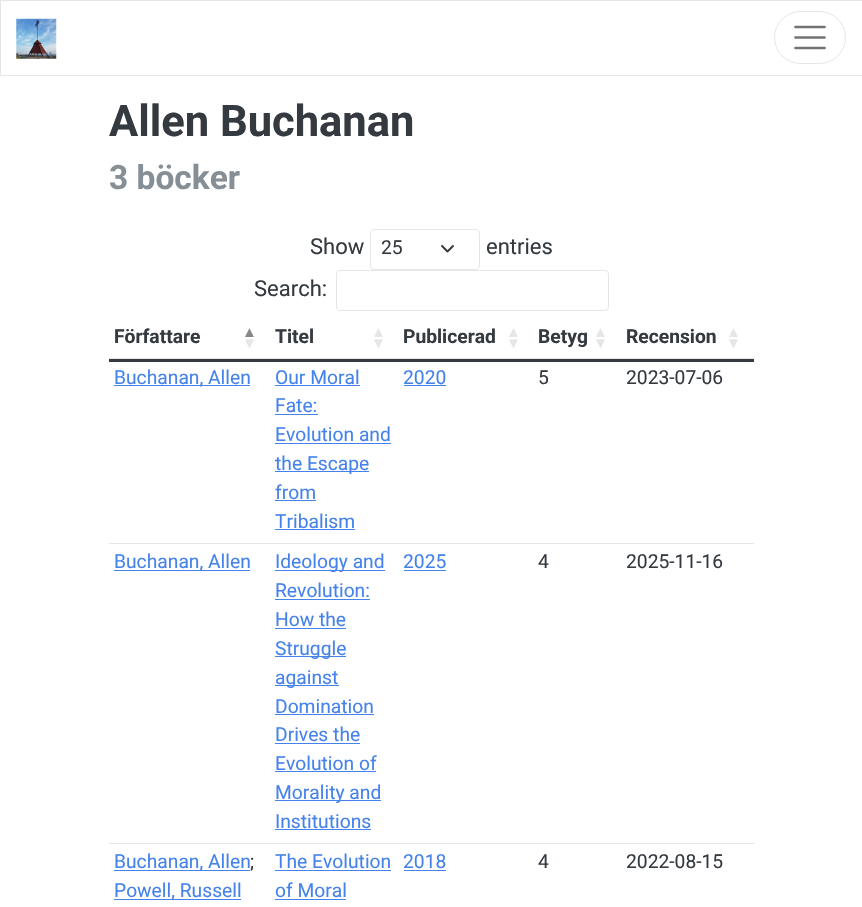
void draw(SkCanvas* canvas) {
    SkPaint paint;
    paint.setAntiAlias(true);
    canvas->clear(0xFFFFFFFF);
    paint.setStyle(SkPaint::kStroke_Style);
    paint.setStrokeWidth(1);
    paint.setColor(0xFFE6E6E6);
    canvas->drawRect(SkRect::MakeXYWH(0.5f, 0.5f, 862, 75), paint);
    canvas->drawImageRect(SkImages::DeferredFromEncodedData(SkData::MakeFromFileName("img1.png")), SkRect::MakeXYWH(16, 18, 41, 41), SkSamplingOptions());
    canvas->drawRoundRect(SkRect::MakeXYWH(774.5f, 11.5f, 71, 52), 26, 26, paint);
    paint.setStrokeWidth(2.7f);
    paint.setStrokeCap(SkPaint::kRound_Cap);
    paint.setColor(0xFF737373);
    canvas->drawPath(SkPathBuilder().moveTo(795.5f, 27).lineTo(824.5f, 27).moveTo(795.5f, 37.5f).lineTo(824.5f, 37.5f).moveTo(795.5f, 48).lineTo(824.5f, 48).detach(), paint);
    SkFont font1(fontMgr->matchFamilyStyle("Roboto", SkFontStyle::Bold()), 43.5f);
    font1.setSubpixel(true);
    paint.setStyle(SkPaint::kFill_Style);
    paint.setColor(0xFF343A40);
    canvas->drawString("Allen Buchanan", 109, 136, font1, paint);
    SkFont font2(fontMgr->matchFamilyStyle("Roboto", SkFontStyle::Bold()), 33.5f);
    font2.setSubpixel(true);
    paint.setColor(0xFF868E96);
    canvas->drawString("3 böcker", 109, 189, font2, paint);
    SkFont font3(fontMgr->matchFamilyStyle("Roboto", SkFontStyle::Normal()), 22);
    font3.setSubpixel(true);
    paint.setColor(0xFF343A40);
    canvas->drawString("Show", 310, 254, font3, paint);
    paint.setStyle(SkPaint::kStroke_Style);
    paint.setStrokeWidth(1.9f);
    paint.setStrokeJoin(SkPaint::kRound_Join);
    canvas->drawPath(SkPathBuilder().moveTo(442, 246).lineTo(447.5f, 251.5f).lineTo(453, 246).detach(), paint);
    paint.setStrokeWidth(1);
    paint.setStrokeCap(SkPaint::kButt_Cap);
    paint.setStrokeJoin(SkPaint::kMiter_Join);
    paint.setColor(0xFFE6E6E6);
    canvas->drawRoundRect(SkRect::MakeXYWH(370.5f, 229.5f, 109, 40), 3.5f, 3.5f, paint);
    SkFont font4(fontMgr->matchFamilyStyle("Roboto", SkFontStyle::Normal()), 19.25f);
    font4.setSubpixel(true);
    paint.setStyle(SkPaint::kFill_Style);
    paint.setColor(0xFF343A40);
    canvas->drawString("25", 381, 254, font4, paint);
    canvas->drawString("entries", 486, 254, font3, paint);
    canvas->drawString("Search:", 254, 296, font3, paint);
    paint.setStyle(SkPaint::kStroke_Style);
    paint.setColor(0xFFE6E6E6);
    canvas->drawRoundRect(SkRect::MakeXYWH(336.5f, 270.5f, 272, 40), 3.5f, 3.5f, paint);
    paint.setStyle(SkPaint::kFill_Style);
    canvas->drawRect(SkRect::MakeXYWH(109, 358, 645, 1), paint);
    SkFont font5(fontMgr->matchFamilyStyle("Roboto", SkFontStyle::Bold()), 19.25f);
    font5.setSubpixel(true);
    paint.setColor(0xFF343A40);
    canvas->drawString("Författare", 114, 343, font5, paint);
    SkFont font6(fontMgr->matchFamilyStyle("Liberation Sans", SkFontStyle::Bold()), 15);
    font6.setSubpixel(true);
    paint.setColor(0xFF85898C);
    canvas->drawString("▲", 242, 337, font6, paint);
    paint.setColor(0xFFE6E6E7);
    canvas->drawString("▼", 242, 348, font6, paint);
    paint.setColor(0xFF343A40);
    canvas->drawString("Titel", 275, 343, font5, paint);
    paint.setColor(0xFFE6E6E7);
    canvas->drawString("▲", 371, 337, font6, paint);
    canvas->drawString("▼", 371, 348, font6, paint);
    paint.setColor(0xFF343A40);
    canvas->drawString("Publicerad", 403, 343, font5, paint);
    paint.setColor(0xFFE6E6E7);
    canvas->drawString("▲", 506, 337, font6, paint);
    canvas->drawString("▼", 506, 348, font6, paint);
    paint.setColor(0xFF343A40);
    canvas->drawString("Betyg", 538, 343, font5, paint);
    paint.setColor(0xFFE6E6E7);
    canvas->drawString("▲", 593, 337, font6, paint);
    canvas->drawString("▼", 593, 348, font6, paint);
    paint.setColor(0xFF343A40);
    canvas->drawString("Recension", 626, 343, font5, paint);
    paint.setColor(0xFFE6E6E7);
    canvas->drawString("▲", 726, 337, font6, paint);
    canvas->drawString("▼", 726, 348, font6, paint);
    paint.setColor(0xFF343A40);
    canvas->drawRect(SkRect::MakeXYWH(109, 359, 645, 3), paint);
    paint.setColor(0xFFE6E6E6);
    canvas->drawRect(SkRect::MakeXYWH(109, 543, 645, 1), paint);
    paint.setColor(0xFF4582EC);
    canvas->drawRect(SkRect::MakeXYWH(114, 385, 136, 1), paint);
    canvas->drawString("Buchanan, Allen", 114, 384, font4, paint);
    canvas->drawString("Our Moral", 275, 384, font4, paint);
    canvas->drawRect(SkRect::MakeXYWH(275, 385, 85, 1), paint);
    canvas->drawString("Fate:", 275, 412, font4, paint);
    canvas->drawRect(SkRect::MakeXYWH(275, 414, 43, 1), paint);
    canvas->drawString("Evolution and", 275, 441, font4, paint);
    canvas->drawRect(SkRect::MakeXYWH(275, 443, 116, 1), paint);
    canvas->drawRect(SkRect::MakeXYWH(275, 471, 94, 1), paint);
    canvas->drawString("the Escape", 275, 470, font4, paint);
    canvas->drawString("from", 275, 499, font4, paint);
    canvas->drawRect(SkRect::MakeXYWH(275, 500, 41, 1), paint);
    canvas->drawString("Tribalism", 275, 528, font4, paint);
    canvas->drawRect(SkRect::MakeXYWH(275, 529, 80, 1), paint);
    canvas->drawString("2020", 403, 384, font4, paint);
    canvas->drawRect(SkRect::MakeXYWH(404, 385, 42, 1), paint);
    paint.setColor(0xFF343A40);
    canvas->drawString("5", 538, 384, font4, paint);
    canvas->drawString("2023-07-06", 626, 384, font4, paint);
    paint.setColor(0xFFE6E6E6);
    canvas->drawRect(SkRect::MakeXYWH(109, 843, 645, 1), paint);
    paint.setColor(0xFF4582EC);
    canvas->drawRect(SkRect::MakeXYWH(114, 570, 136, 1), paint);
    canvas->drawString("Buchanan, Allen", 114, 568, font4, paint);
    canvas->drawRect(SkRect::MakeXYWH(275, 570, 110, 1), paint);
    canvas->drawString("Ideology and", 275, 568, font4, paint);
    canvas->drawString("Revolution:", 275, 597, font4, paint);
    canvas->drawRect(SkRect::MakeXYWH(275, 599, 95, 1), paint);
    canvas->drawString("How the", 275, 626, font4, paint);
    canvas->drawRect(SkRect::MakeXYWH(275, 628, 71, 1), paint);
    canvas->drawRect(SkRect::MakeXYWH(275, 656, 71, 1), paint);
    canvas->drawString("Struggle", 275, 655, font4, paint);
    canvas->drawRect(SkRect::MakeXYWH(275, 685, 64, 1), paint);
    canvas->drawString("against", 275, 684, font4, paint);
    canvas->drawString("Domination", 275, 713, font4, paint);
    canvas->drawRect(SkRect::MakeXYWH(275, 714, 99, 1), paint);
    canvas->drawString("Drives the", 275, 741, font4, paint);
    canvas->drawRect(SkRect::MakeXYWH(275, 743, 85, 1), paint);
    canvas->drawString("Evolution of", 275, 770, font4, paint);
    canvas->drawRect(SkRect::MakeXYWH(275, 771, 101, 1), paint);
    canvas->drawRect(SkRect::MakeXYWH(275, 800, 106, 1), paint);
    canvas->drawString("Morality and", 275, 799, font4, paint);
    canvas->drawString("Institutions", 275, 828, font4, paint);
    canvas->drawRect(SkRect::MakeXYWH(275, 829, 96, 1), paint);
    canvas->drawString("2025", 403, 568, font4, paint);
    canvas->drawRect(SkRect::MakeXYWH(404, 570, 42, 1), paint);
    paint.setColor(0xFF343A40);
    canvas->drawString("4", 538, 568, font4, paint);
    canvas->drawString("2025-11-16", 626, 568, font4, paint);
    paint.setColor(0xFF4582EC);
    canvas->drawRect(SkRect::MakeXYWH(114, 870, 136, 1), paint);
    canvas->drawString("Buchanan, Allen", 114, 868, font4, paint);
    paint.setColor(0xFF343A40);
    canvas->drawString(";", 250, 868, font4, paint);
    paint.setColor(0xFF4582EC);
    canvas->drawRect(SkRect::MakeXYWH(114, 899, 127, 1), paint);
    canvas->drawString("Powell, Russell", 114, 897, font4, paint);
    canvas->drawString("The Evolution", 275, 868, font4, paint);
    canvas->drawRect(SkRect::MakeXYWH(275, 870, 116, 1), paint);
    canvas->drawString("of Moral", 275, 897, font4, paint);
    canvas->drawRect(SkRect::MakeXYWH(275, 899, 71, 1), paint);
    canvas->drawString("2018", 403, 868, font4, paint);
    canvas->drawRect(SkRect::MakeXYWH(404, 870, 42, 1), paint);
    paint.setColor(0xFF343A40);
    canvas->drawString("4", 538, 868, font4, paint);
    canvas->drawString("2022-08-15", 626, 868, font4, paint);
}
